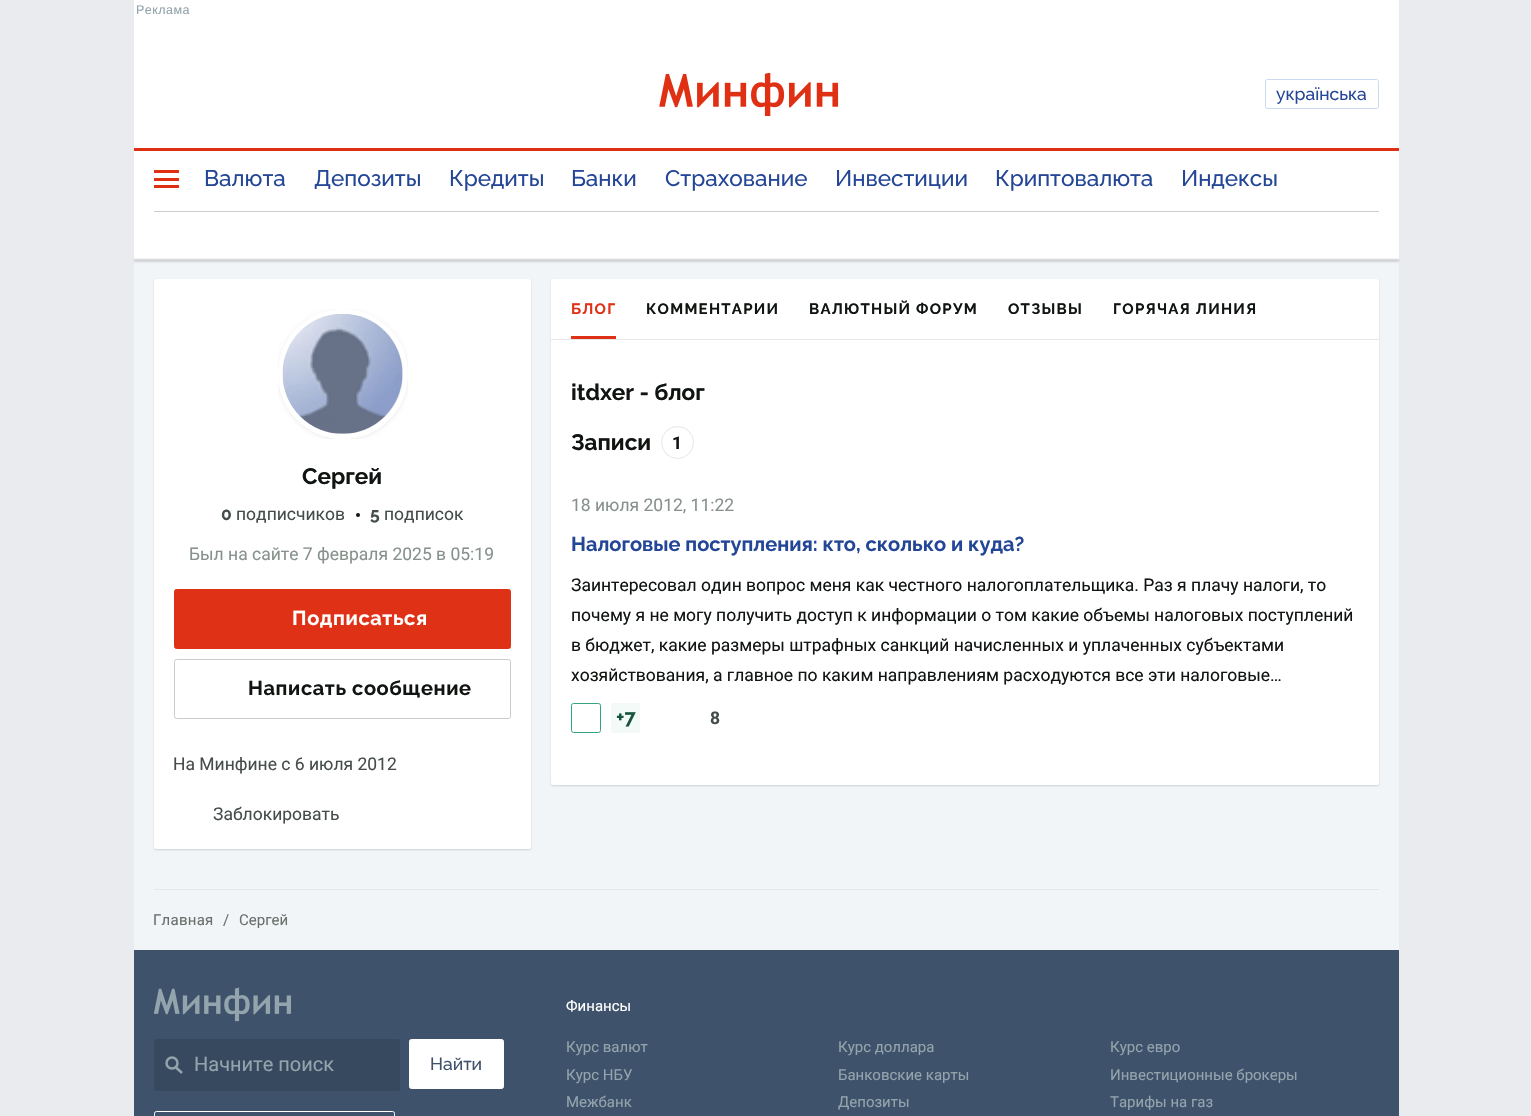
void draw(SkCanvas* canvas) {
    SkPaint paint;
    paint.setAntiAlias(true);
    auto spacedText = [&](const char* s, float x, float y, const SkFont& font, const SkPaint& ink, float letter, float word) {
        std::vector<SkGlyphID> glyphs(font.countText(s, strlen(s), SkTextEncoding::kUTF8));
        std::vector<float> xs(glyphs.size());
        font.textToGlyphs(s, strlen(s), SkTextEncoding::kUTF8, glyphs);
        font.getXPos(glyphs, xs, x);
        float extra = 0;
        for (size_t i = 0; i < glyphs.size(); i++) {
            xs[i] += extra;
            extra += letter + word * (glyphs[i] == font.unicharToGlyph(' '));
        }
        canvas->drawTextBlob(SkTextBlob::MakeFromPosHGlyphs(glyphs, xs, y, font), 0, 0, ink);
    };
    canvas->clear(0xFFE9EBEE);
    paint.setColor(0xFFFFFFFF);
    canvas->drawRect(SkRect::MakeXYWH(134, 0, 1265, 148), paint);
    SkFont font1(fontMgr->matchFamilyStyle("Liberation Sans", SkFontStyle::Normal()), 12.5f);
    font1.setSubpixel(true);
    paint.setColor(0xFF93A4AC);
    spacedText("Реклама", 136, 14, font1, paint, 0.5f, 0);
    canvas->drawImageRect(SkImages::DeferredFromEncodedData(SkData::MakeFromFileName("img1.png")), SkRect::MakeXYWH(659, 73, 180, 43), SkSamplingOptions());
    paint.setStyle(SkPaint::kStroke_Style);
    paint.setStrokeWidth(1);
    paint.setColor(0xFFCBDAF3);
    canvas->drawRoundRect(SkRect::MakeXYWH(1265.5f, 79.5f, 113, 29), 2, 2, paint);
    SkFont font2(fontMgr->matchFamilyStyle("Raleway", SkFontStyle(500, SkFontStyle::kNormal_Width, SkFontStyle::kUpright_Slant)), 17.5f);
    font2.setSubpixel(true);
    paint.setStyle(SkPaint::kFill_Style);
    paint.setColor(0xFF244696);
    canvas->drawString("українська", 1276, 100, font2, paint);
    paint.setColor(0xFFFFFFFF);
    canvas->drawRect(SkRect::MakeXYWH(134, 151, 1265, 108), paint);
    paint.setColor(0xFFDF3014);
    canvas->drawRect(SkRect::MakeXYWH(134, 148, 1265, 3), paint);
    canvas->drawRect(SkRect::MakeXYWH(154, 170, 25, 3), paint);
    canvas->drawRect(SkRect::MakeXYWH(154, 178, 25, 3), paint);
    canvas->drawRect(SkRect::MakeXYWH(154, 185, 25, 3), paint);
    SkFont font3(fontMgr->matchFamilyStyle("Raleway", SkFontStyle(500, SkFontStyle::kNormal_Width, SkFontStyle::kUpright_Slant)), 22.5f);
    font3.setSubpixel(true);
    paint.setColor(0xFF244696);
    canvas->drawString("Валюта", 204, 186, font3, paint);
    canvas->drawString("Депозиты", 314, 186, font3, paint);
    canvas->drawString("Кредиты", 449, 186, font3, paint);
    canvas->drawString("Банки", 571, 186, font3, paint);
    canvas->drawString("Страхование", 665, 186, font3, paint);
    canvas->drawString("Инвестиции", 835, 186, font3, paint);
    canvas->drawString("Криптовалюта", 995, 186, font3, paint);
    canvas->drawString("Индексы", 1181, 186, font3, paint);
    paint.setColor(0xFFCCCCCC);
    canvas->drawRect(SkRect::MakeXYWH(154, 211, 1225, 1), paint);
    paint.setColor(0xFFF2F5F8);
    canvas->drawRect(SkRect::MakeXYWH(134, 259, 1265, 691), paint);
    paint.setColor(0x26000000);
    paint.setMaskFilter(SkMaskFilter::MakeBlur(kNormal_SkBlurStyle, 1));
    canvas->drawRect(SkRect::MakeXYWH(134, 259, 1265, 3), paint);
    paint.setMaskFilter(nullptr);
    paint.setColor(0x24000000);
    paint.setMaskFilter(SkMaskFilter::MakeBlur(kNormal_SkBlurStyle, 1));
    canvas->drawRoundRect(SkRect::MakeXYWH(154, 280, 377, 570), 2.5f, 2.5f, paint);
    paint.setMaskFilter(nullptr);
    paint.setColor(0xFFFFFFFF);
    canvas->drawRoundRect(SkRect::MakeXYWH(154, 279, 377, 570), 2.5f, 2.5f, paint);
    canvas->save();
    canvas->clipRect(SkRect::MakeXYWH(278, 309, 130, 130));
    paint.setColor(0x14000000);
    paint.setMaskFilter(SkMaskFilter::MakeBlur(kNormal_SkBlurStyle, 2));
    canvas->drawRoundRect(SkRect::MakeXYWH(278, 310, 130, 130), 65, 65, paint);
    paint.setMaskFilter(nullptr);
    canvas->restore();
    paint.setStyle(SkPaint::kStroke_Style);
    paint.setStrokeWidth(5);
    paint.setColor(0xFFFFFFFF);
    canvas->drawCircle(343, 374, 62.5f, paint);
    canvas->drawImageRect(SkImages::DeferredFromEncodedData(SkData::MakeFromFileName("img2.png")), SkRect::MakeXYWH(282, 314, 121, 120), SkSamplingOptions());
    SkFont font4(fontMgr->matchFamilyStyle("Raleway", SkFontStyle::Bold()), 22.5f);
    font4.setSubpixel(true);
    paint.setStyle(SkPaint::kFill_Style);
    paint.setColor(0xFF111512);
    canvas->drawString("Сергей", 302, 484, font4, paint);
    SkFont font5(fontMgr->matchFamilyStyle("Raleway", SkFontStyle::Bold()), 17.5f);
    font5.setSubpixel(true);
    paint.setColor(0xFF454D49);
    canvas->drawString("0", 221, 520, font5, paint);
    SkFont font6(fontMgr->matchFamilyStyle("Roboto", SkFontStyle::Normal()), 17.5f);
    font6.setSubpixel(true);
    canvas->drawString("подписчиков", 236, 520, font6, paint);
    paint.setColor(0xFF111512);
    canvas->drawCircle(358, 515, 2, paint);
    paint.setColor(0xFF454D49);
    canvas->drawString("5", 370, 520, font5, paint);
    canvas->drawString("подписок", 384, 520, font6, paint);
    paint.setColor(0xFF87928C);
    canvas->drawString("Был на сайте 7 февраля 2025 в 05:19", 189, 560, font6, paint);
    paint.setColor(0xFFDF3115);
    canvas->drawRoundRect(SkRect::MakeXYWH(174.5f, 589.5f, 336, 59), 2, 2, paint);
    paint.setStyle(SkPaint::kStroke_Style);
    paint.setStrokeWidth(1);
    canvas->drawRoundRect(SkRect::MakeXYWH(174.5f, 589.5f, 336, 59), 2, 2, paint);
    SkFont font7(fontMgr->matchFamilyStyle("Raleway", SkFontStyle::Bold()), 20);
    font7.setSubpixel(true);
    paint.setStyle(SkPaint::kFill_Style);
    paint.setColor(0xFFFFFFFF);
    spacedText("Подписаться", 292, 625, font7, paint, 0.6f, 0);
    paint.setStyle(SkPaint::kStroke_Style);
    paint.setColor(0xFFCACCCB);
    canvas->drawRoundRect(SkRect::MakeXYWH(174.5f, 659.5f, 336, 59), 2, 2, paint);
    paint.setStyle(SkPaint::kFill_Style);
    paint.setColor(0xFF111512);
    spacedText("Написать сообщение", 248, 695, font7, paint, 0.6f, 0);
    paint.setColor(0xFF454D49);
    canvas->drawString("На Минфине с 6 июля 2012", 173, 770, font6, paint);
    canvas->drawString("Заблокировать", 213, 820, font6, paint);
    paint.setColor(0x24000000);
    paint.setMaskFilter(SkMaskFilter::MakeBlur(kNormal_SkBlurStyle, 1));
    canvas->drawRoundRect(SkRect::MakeXYWH(551, 280, 828, 506), 2.5f, 2.5f, paint);
    paint.setMaskFilter(nullptr);
    paint.setColor(0xFFFFFFFF);
    canvas->drawRoundRect(SkRect::MakeXYWH(551, 279, 828, 506), 2.5f, 2.5f, paint);
    paint.setColor(0xFFE6E6E6);
    canvas->drawRect(SkRect::MakeXYWH(551, 339, 828, 1), paint);
    SkFont font8(fontMgr->matchFamilyStyle("Raleway", SkFontStyle::Bold()), 15);
    font8.setSubpixel(true);
    paint.setColor(0xFFDF3115);
    spacedText("БЛОГ", 571, 314, font8, paint, 1.25f, 0);
    canvas->drawRect(SkRect::MakeXYWH(571, 336, 45, 3), paint);
    paint.setColor(0xFF111512);
    spacedText("КОММЕНТАРИИ", 646, 314, font8, paint, 1.25f, 0);
    spacedText("ВАЛЮТНЫЙ ФОРУМ", 809, 314, font8, paint, 1.25f, 0);
    spacedText("ОТЗЫВЫ", 1008, 314, font8, paint, 1.25f, 0);
    spacedText("ГОРЯЧАЯ ЛИНИЯ", 1113, 314, font8, paint, 1.25f, 0);
    canvas->drawString("itdxer - блог", 571, 400, font4, paint);
    canvas->drawString("Записи", 571, 450, font4, paint);
    paint.setStyle(SkPaint::kStroke_Style);
    paint.setColor(0xFFE6E6E6);
    canvas->drawCircle(677.5f, 442.5f, 16, paint);
    SkFont font9(fontMgr->matchFamilyStyle("Roboto", SkFontStyle::Bold()), 17.5f);
    font9.setSubpixel(true);
    paint.setStyle(SkPaint::kFill_Style);
    paint.setColor(0xFF111512);
    canvas->drawString("1", 672, 449, font9, paint);
    paint.setColor(0xFF87928C);
    canvas->drawString("18 июля 2012, 11:22", 571, 511, font6, paint);
    paint.setColor(0xFF244696);
    canvas->drawString("Налоговые поступления: кто, сколько и куда?", 571, 551, font7, paint);
    paint.setColor(0xFF111512);
    canvas->drawString("Заинтересовал один вопрос меня как честного налогоплательщика. Раз я плачу налоги, то", 571, 591, font6, paint);
    canvas->drawString("почему я не могу получить доступ к информации о том какие объемы налоговых поступлений", 571, 621, font6, paint);
    canvas->drawString("в бюджет, какие размеры штрафных санкций начисленных и уплаченных субъектами", 571, 651, font6, paint);
    canvas->drawString("хозяйствования, а главное по каким направлениям расходуются все эти налоговые…", 571, 681, font6, paint);
    paint.setStyle(SkPaint::kStroke_Style);
    paint.setColor(0xFF35A47C);
    canvas->drawRoundRect(SkRect::MakeXYWH(571.5f, 703.5f, 29, 29), 2, 2, paint);
    paint.setStyle(SkPaint::kFill_Style);
    paint.setColor(0xFFF3FAF7);
    canvas->drawRect(SkRect::MakeXYWH(611, 703, 29, 30), paint);
    paint.setColor(0xFF19553E);
    canvas->drawString("+7", 616, 724, font7, paint);
    paint.setColor(0xFF454D49);
    canvas->drawString("8", 710, 724, font9, paint);
    paint.setColor(0xFFE6E6E6);
    canvas->drawRect(SkRect::MakeXYWH(154, 889, 1225, 1), paint);
    SkFont font10(fontMgr->matchFamilyStyle("Roboto", SkFontStyle::Normal()), 15);
    font10.setSubpixel(true);
    paint.setColor(0xFF696F6B);
    spacedText("Главная", 153, 925, font10, paint, 0.25f, 0);
    spacedText("/", 223, 925, font10, paint, 0.25f, 0);
    canvas->drawString("Сергей", 239, 925, font10, paint);
    paint.setColor(0xFF3E526B);
    canvas->drawRect(SkRect::MakeXYWH(134, 950, 1265, 166), paint);
    canvas->drawImageRect(SkImages::DeferredFromEncodedData(SkData::MakeFromFileName("img3.png")), SkRect::MakeXYWH(154, 987, 137, 35), SkSamplingOptions());
    paint.setColor(0xFF36495E);
    canvas->drawRoundRect(SkRect::MakeXYWH(154, 1039, 246, 52), 2.5f, 2.5f, paint);
    paint.setStyle(SkPaint::kStroke_Style);
    paint.setStrokeWidth(2.5f);
    paint.setColor(0xFF93A4AC);
    canvas->drawCircle(172, 1063, 5.5f, paint);
    canvas->drawPath(SkPathBuilder().moveTo(176, 1067.5f).lineTo(182, 1073).detach(), paint);
    SkFont font11(fontMgr->matchFamilyStyle("Roboto", SkFontStyle::Normal()), 20);
    font11.setSubpixel(true);
    paint.setStyle(SkPaint::kFill_Style);
    canvas->drawString("Начните поиск", 194, 1071, font11, paint);
    paint.setColor(0xFFFFFFFF);
    canvas->drawRoundRect(SkRect::MakeXYWH(409.5f, 1039.5f, 94, 49), 2, 2, paint);
    paint.setStyle(SkPaint::kStroke_Style);
    paint.setStrokeWidth(1);
    canvas->drawRoundRect(SkRect::MakeXYWH(409.5f, 1039.5f, 94, 49), 2, 2, paint);
    paint.setStyle(SkPaint::kFill_Style);
    paint.setColor(0xFF3E526B);
    canvas->drawString("Найти", 430, 1070, font2, paint);
    paint.setStyle(SkPaint::kStroke_Style);
    paint.setColor(0xFFFFFFFF);
    canvas->drawRoundRect(SkRect::MakeXYWH(154.5f, 1111.5f, 240, 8), 2, 2, paint);
    paint.setStyle(SkPaint::kFill_Style);
    canvas->drawString("Финансы", 566, 1011, font10, paint);
    paint.setColor(0xFF93A4AC);
    canvas->drawString("Курс валют", 566, 1052, font10, paint);
    canvas->drawString("Курс доллара", 838, 1052, font10, paint);
    canvas->drawString("Курс евро", 1110, 1052, font10, paint);
    canvas->drawString("Курс НБУ", 566, 1080, font10, paint);
    canvas->drawString("Банковские карты", 838, 1080, font10, paint);
    canvas->drawString("Инвестиционные брокеры", 1110, 1080, font10, paint);
    canvas->drawString("Межбанк", 566, 1107, font10, paint);
    canvas->drawString("Депозиты", 838, 1107, font10, paint);
    canvas->drawString("Тарифы на газ", 1110, 1107, font10, paint);
}
